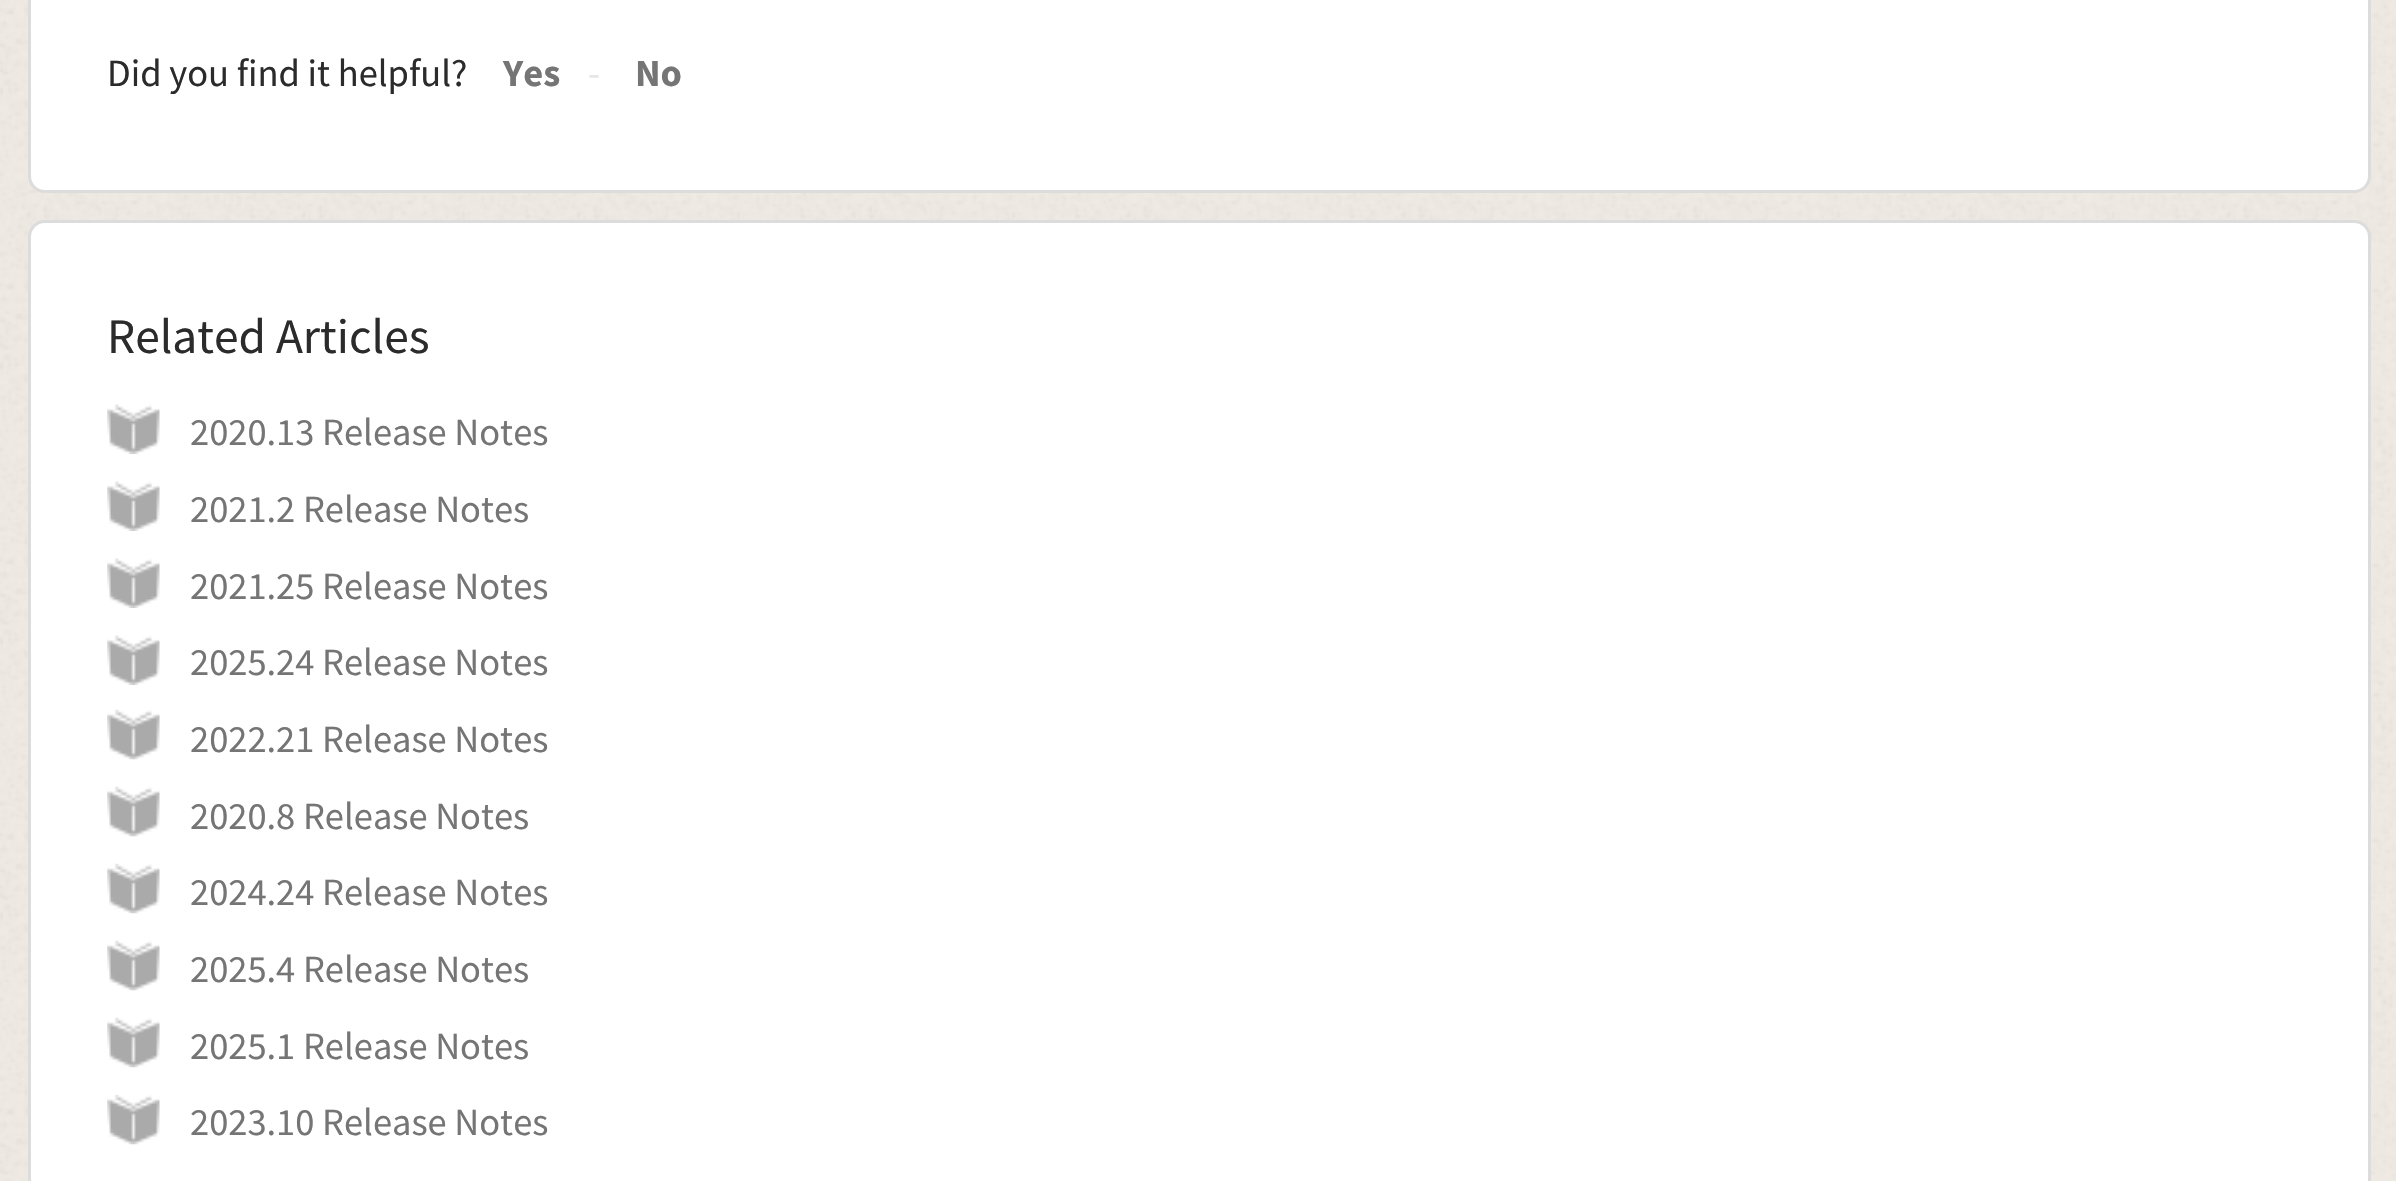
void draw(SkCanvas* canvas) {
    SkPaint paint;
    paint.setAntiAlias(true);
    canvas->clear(0xFFF0EAE4);
    canvas->drawImageRect(SkImages::DeferredFromEncodedData(SkData::MakeFromFileName("img1.png")), SkRect::MakeXYWH(0, 0, 2396, 1181), SkSamplingOptions());
    paint.setColor(0xFFFFFFFF);
    canvas->drawRoundRect(SkRect::MakeXYWH(29.5f, -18.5f, 2340, 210), 15.5f, 15.5f, paint);
    paint.setStyle(SkPaint::kStroke_Style);
    paint.setStrokeWidth(3);
    paint.setColor(0xFFDCDCDC);
    canvas->drawRoundRect(SkRect::MakeXYWH(29.5f, -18.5f, 2340, 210), 15.5f, 15.5f, paint);
    SkFont font1(fontMgr->matchFamilyStyle("Source Sans Pro", SkFontStyle::Normal()), 38.5f);
    font1.setSubpixel(true);
    paint.setStyle(SkPaint::kFill_Style);
    paint.setColor(0xFF2C2B2C);
    canvas->drawString("Did you find it helpful?", 107, 86, font1, paint);
    SkFont font2(fontMgr->matchFamilyStyle("Source Sans Pro", SkFontStyle::Bold()), 38.5f);
    font2.setSubpixel(true);
    paint.setColor(0xFF757575);
    canvas->drawString("Yes", 503, 86, font2, paint);
    paint.setColor(0xFFE5E5E5);
    canvas->drawString("-", 588, 86, font1, paint);
    paint.setColor(0xFF757575);
    canvas->drawString("No", 635, 86, font2, paint);
    paint.setColor(0xFFFFFFFF);
    canvas->drawRoundRect(SkRect::MakeXYWH(29.5f, 221.5f, 2340, 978), 15.5f, 15.5f, paint);
    paint.setStyle(SkPaint::kStroke_Style);
    paint.setColor(0xFFDCDCDC);
    canvas->drawRoundRect(SkRect::MakeXYWH(29.5f, 221.5f, 2340, 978), 15.5f, 15.5f, paint);
    SkFont font3(fontMgr->matchFamilyStyle("Source Sans Pro", SkFontStyle::Normal()), 49.5f);
    font3.setSubpixel(true);
    paint.setStyle(SkPaint::kFill_Style);
    paint.setColor(0xFF2C2B2C);
    canvas->drawString("Related Articles", 107, 353, font3, paint);
    canvas->drawImageRect(SkImages::DeferredFromEncodedData(SkData::MakeFromFileName("img2.png")), SkRect::MakeXYWH(107, 404, 53, 50), SkSamplingOptions());
    paint.setColor(0xFF757575);
    canvas->drawString("2020.13 Release Notes", 190, 445, font1, paint);
    canvas->drawImageRect(SkImages::DeferredFromEncodedData(SkData::MakeFromFileName("img2.png")), SkRect::MakeXYWH(107, 481, 53, 50), SkSamplingOptions());
    canvas->drawString("2021.2 Release Notes", 190, 522, font1, paint);
    canvas->drawImageRect(SkImages::DeferredFromEncodedData(SkData::MakeFromFileName("img2.png")), SkRect::MakeXYWH(107, 558, 53, 50), SkSamplingOptions());
    canvas->drawString("2021.25 Release Notes", 190, 599, font1, paint);
    canvas->drawImageRect(SkImages::DeferredFromEncodedData(SkData::MakeFromFileName("img2.png")), SkRect::MakeXYWH(107, 635, 53, 50), SkSamplingOptions());
    canvas->drawString("2025.24 Release Notes", 190, 675, font1, paint);
    canvas->drawImageRect(SkImages::DeferredFromEncodedData(SkData::MakeFromFileName("img3.png")), SkRect::MakeXYWH(107, 709, 53, 51), SkSamplingOptions());
    canvas->drawString("2022.21 Release Notes", 190, 752, font1, paint);
    canvas->drawImageRect(SkImages::DeferredFromEncodedData(SkData::MakeFromFileName("img3.png")), SkRect::MakeXYWH(107, 786, 53, 51), SkSamplingOptions());
    canvas->drawString("2020.8 Release Notes", 190, 829, font1, paint);
    canvas->drawImageRect(SkImages::DeferredFromEncodedData(SkData::MakeFromFileName("img3.png")), SkRect::MakeXYWH(107, 863, 53, 51), SkSamplingOptions());
    canvas->drawString("2024.24 Release Notes", 190, 905, font1, paint);
    canvas->drawImageRect(SkImages::DeferredFromEncodedData(SkData::MakeFromFileName("img3.png")), SkRect::MakeXYWH(107, 940, 53, 51), SkSamplingOptions());
    canvas->drawString("2025.4 Release Notes", 190, 982, font1, paint);
    canvas->drawImageRect(SkImages::DeferredFromEncodedData(SkData::MakeFromFileName("img3.png")), SkRect::MakeXYWH(107, 1017, 53, 51), SkSamplingOptions());
    canvas->drawString("2025.1 Release Notes", 190, 1059, font1, paint);
    canvas->drawImageRect(SkImages::DeferredFromEncodedData(SkData::MakeFromFileName("img3.png")), SkRect::MakeXYWH(107, 1094, 53, 51), SkSamplingOptions());
    canvas->drawString("2023.10 Release Notes", 190, 1135, font1, paint);
}
